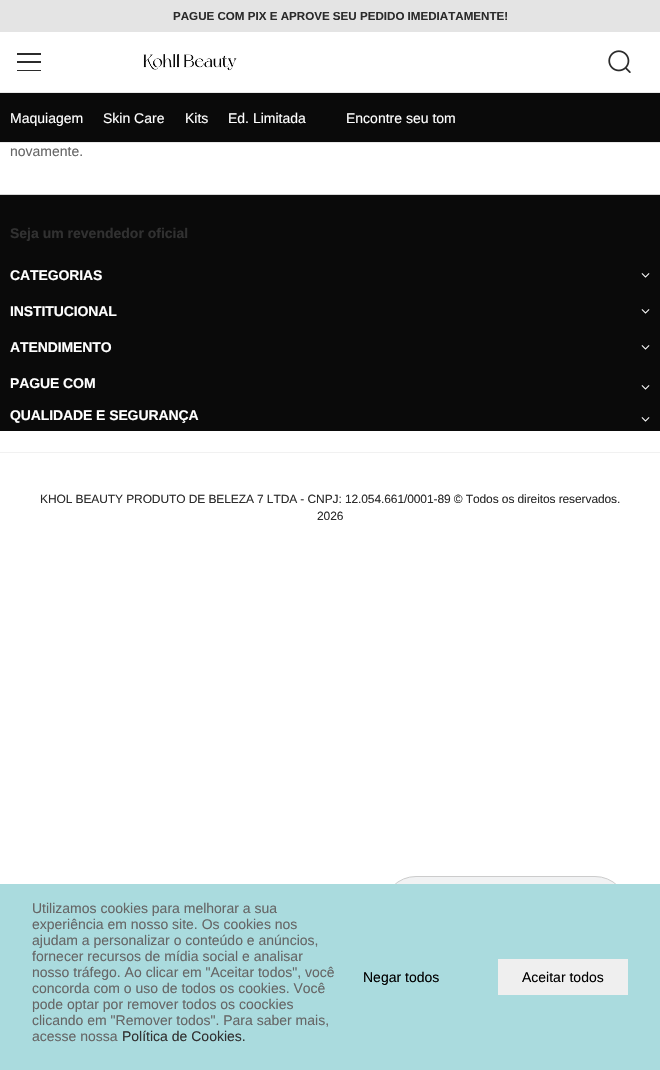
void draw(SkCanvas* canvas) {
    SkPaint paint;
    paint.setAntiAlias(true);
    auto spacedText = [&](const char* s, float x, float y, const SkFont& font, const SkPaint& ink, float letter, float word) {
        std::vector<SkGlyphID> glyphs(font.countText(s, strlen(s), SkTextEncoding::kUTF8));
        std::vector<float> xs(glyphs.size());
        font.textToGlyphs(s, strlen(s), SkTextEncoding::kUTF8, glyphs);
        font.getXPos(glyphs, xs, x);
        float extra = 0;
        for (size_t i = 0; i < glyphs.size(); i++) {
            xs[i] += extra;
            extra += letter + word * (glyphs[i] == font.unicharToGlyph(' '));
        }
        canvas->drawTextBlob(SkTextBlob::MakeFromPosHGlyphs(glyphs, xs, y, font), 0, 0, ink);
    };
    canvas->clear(0xFFFFFFFF);
    paint.setColor(0xFFE4E4E4);
    canvas->drawRect(SkRect::MakeXYWH(0, 0, 660, 32), paint);
    SkFont font1(fontMgr->matchFamilyStyle("Liberation Sans", SkFontStyle::Bold()), 11.6f);
    font1.setSubpixel(true);
    paint.setColor(0xFF2B2B2B);
    canvas->drawString("PAGUE COM PIX E APROVE SEU PEDIDO IMEDIATAMENTE!", 173, 20, font1, paint);
    canvas->drawRect(SkRect::MakeXYWH(17, 53, 24, 2), paint);
    canvas->drawRect(SkRect::MakeXYWH(17, 61, 24, 2), paint);
    canvas->drawRect(SkRect::MakeXYWH(17, 70, 24, 1), paint);
    canvas->drawImageRect(SkImages::DeferredFromEncodedData(SkData::MakeFromFileName("img1.png")), SkRect::MakeXYWH(143, 54, 94, 17), SkSamplingOptions());
    canvas->drawImageRect(SkImages::DeferredFromEncodedData(SkData::MakeFromFileName("img2.png")), SkRect::MakeXYWH(608, 50, 23, 23), SkSamplingOptions());
    paint.setColor(0xFF0A0A0A);
    canvas->drawRect(SkRect::MakeXYWH(0, 93, 660, 49), paint);
    paint.setColor(0xFFE8E8E8);
    canvas->drawRect(SkRect::MakeXYWH(0, 92, 660, 1), paint);
    canvas->drawRect(SkRect::MakeXYWH(0, 142, 660, 1), paint);
    SkFont font2(fontMgr->matchFamilyStyle("Liberation Sans", SkFontStyle::Normal()), 14);
    font2.setSubpixel(true);
    paint.setColor(0xFFFFFFFF);
    canvas->drawString("Maquiagem", 10, 123, font2, paint);
    canvas->drawString("Skin Care", 103, 123, font2, paint);
    canvas->drawString("Kits", 185, 123, font2, paint);
    canvas->drawString("Ed. Limitada", 228, 123, font2, paint);
    canvas->drawString("Encontre seu tom", 346, 123, font2, paint);
    paint.setColor(0xFF666666);
    canvas->drawString("novamente.", 10, 156, font2, paint);
    paint.setColor(0xFF0A0A0A);
    canvas->drawRect(SkRect::MakeXYWH(0, 195, 660, 236), paint);
    paint.setColor(0xFFD6D6D6);
    canvas->drawRect(SkRect::MakeXYWH(0, 194, 660, 1), paint);
    SkFont font3(fontMgr->matchFamilyStyle("Liberation Sans", SkFontStyle::Bold()), 14);
    font3.setSubpixel(true);
    paint.setColor(0xFF313131);
    canvas->drawString("Seja um revendedor oficial", 10, 238, font3, paint);
    paint.setColor(0xFFFFFFFF);
    spacedText("CATEGORIAS", 10, 280, font3, paint, -0.1f, 0);
    canvas->drawImageRect(SkImages::DeferredFromEncodedData(SkData::MakeFromFileName("img3.png")), SkRect::MakeXYWH(641, 273, 9, 5), SkSamplingOptions());
    spacedText("INSTITUCIONAL", 10, 316, font3, paint, -0.1f, 0);
    canvas->drawImageRect(SkImages::DeferredFromEncodedData(SkData::MakeFromFileName("img3.png")), SkRect::MakeXYWH(641, 309, 9, 5), SkSamplingOptions());
    spacedText("ATENDIMENTO", 10, 352, font3, paint, -0.1f, 0);
    canvas->drawImageRect(SkImages::DeferredFromEncodedData(SkData::MakeFromFileName("img3.png")), SkRect::MakeXYWH(641, 345, 9, 5), SkSamplingOptions());
    spacedText("PAGUE COM", 10, 388, font3, paint, -0.1f, 0);
    canvas->drawImageRect(SkImages::DeferredFromEncodedData(SkData::MakeFromFileName("img3.png")), SkRect::MakeXYWH(641, 385, 9, 5), SkSamplingOptions());
    spacedText("QUALIDADE E SEGURANÇA", 10, 420, font3, paint, -0.1f, 0);
    canvas->drawImageRect(SkImages::DeferredFromEncodedData(SkData::MakeFromFileName("img3.png")), SkRect::MakeXYWH(641, 417, 9, 5), SkSamplingOptions());
    paint.setColor(0xFFF1F1F1);
    canvas->drawRect(SkRect::MakeXYWH(0, 452, 660, 1), paint);
    SkFont font4(fontMgr->matchFamilyStyle("Liberation Sans", SkFontStyle::Normal()), 12);
    font4.setSubpixel(true);
    paint.setColor(0xFF2B2B2B);
    spacedText("KHOL BEAUTY PRODUTO DE BELEZA 7 LTDA - CNPJ: 12.054.661/0001-89 © Todos os direitos reservados.", 40, 503, font4, paint, -0.1f, 0);
    spacedText("2026", 317, 520, font4, paint, -0.1f, 0);
    paint.setColor(0xFFF1F2F3);
    canvas->drawRoundRect(SkRect::MakeXYWH(383.5f, 876.5f, 244, 65), 32.5f, 32.5f, paint);
    paint.setStyle(SkPaint::kStroke_Style);
    paint.setStrokeWidth(1);
    paint.setColor(0xFFCCCCCC);
    canvas->drawRoundRect(SkRect::MakeXYWH(383.5f, 876.5f, 244, 65), 32.5f, 32.5f, paint);
    paint.setStyle(SkPaint::kFill_Style);
    paint.setColor(0xFFAADBDE);
    canvas->drawRect(SkRect::MakeXYWH(0, 884, 660, 186), paint);
    paint.setColor(0xFF666666);
    canvas->drawString("Utilizamos cookies para melhorar a sua", 32, 913, font2, paint);
    canvas->drawString("experiência em nosso site. Os cookies nos", 32, 929, font2, paint);
    canvas->drawString("ajudam a personalizar o conteúdo e anúncios,", 32, 945, font2, paint);
    canvas->drawString("fornecer recursos de mídia social e analisar", 32, 961, font2, paint);
    canvas->drawString("nosso tráfego. Ao clicar em \"Aceitar todos\", você", 32, 977, font2, paint);
    canvas->drawString("concorda com o uso de todos os cookies. Você", 32, 993, font2, paint);
    canvas->drawString("pode optar por remover todos os coockies", 32, 1009, font2, paint);
    canvas->drawString("clicando em \"Remover todos\". Para saber mais,", 32, 1025, font2, paint);
    canvas->drawString("acesse nossa", 32, 1041, font2, paint);
    paint.setColor(0xFF313131);
    canvas->drawString("Política de Cookies.", 122, 1041, font2, paint);
    paint.setColor(0xFF000000);
    canvas->drawString("Negar todos", 363, 982, font2, paint);
    paint.setColor(0xFFEFEFEF);
    canvas->drawRect(SkRect::MakeXYWH(498, 959, 130, 36), paint);
    paint.setColor(0xFF000000);
    canvas->drawString("Aceitar todos", 522, 982, font2, paint);
}
